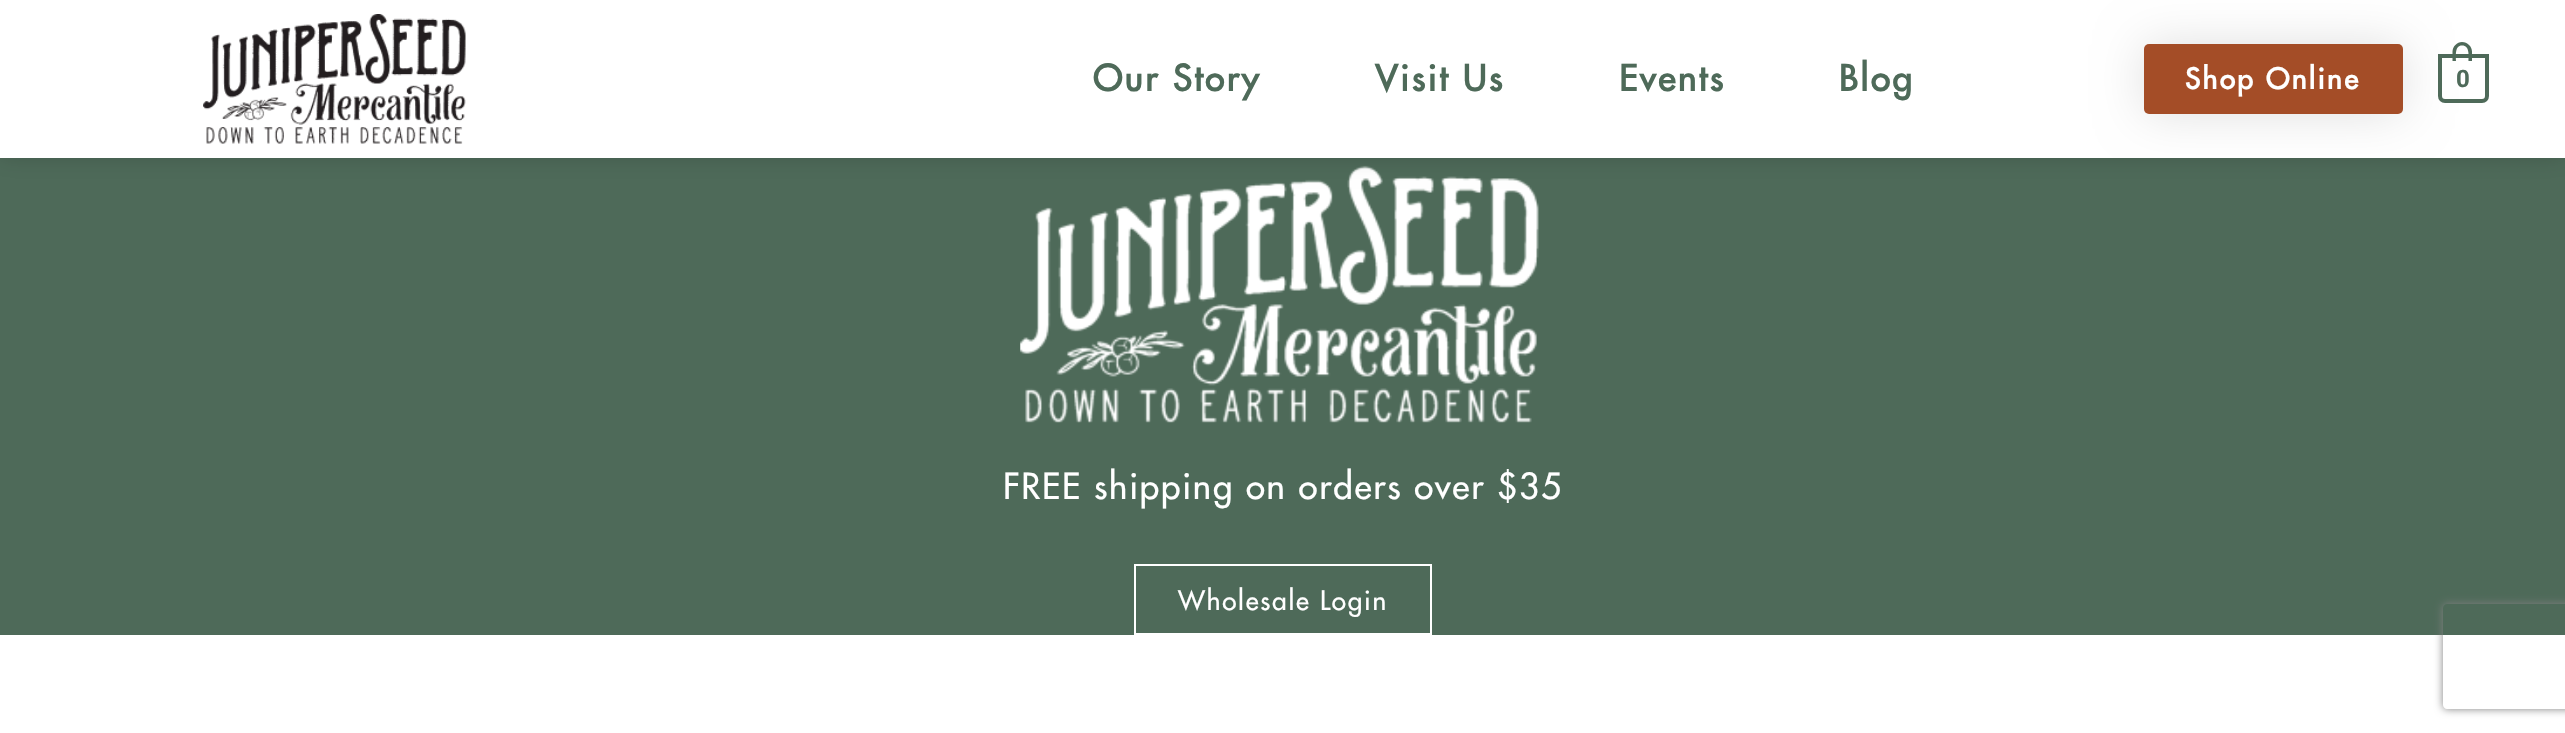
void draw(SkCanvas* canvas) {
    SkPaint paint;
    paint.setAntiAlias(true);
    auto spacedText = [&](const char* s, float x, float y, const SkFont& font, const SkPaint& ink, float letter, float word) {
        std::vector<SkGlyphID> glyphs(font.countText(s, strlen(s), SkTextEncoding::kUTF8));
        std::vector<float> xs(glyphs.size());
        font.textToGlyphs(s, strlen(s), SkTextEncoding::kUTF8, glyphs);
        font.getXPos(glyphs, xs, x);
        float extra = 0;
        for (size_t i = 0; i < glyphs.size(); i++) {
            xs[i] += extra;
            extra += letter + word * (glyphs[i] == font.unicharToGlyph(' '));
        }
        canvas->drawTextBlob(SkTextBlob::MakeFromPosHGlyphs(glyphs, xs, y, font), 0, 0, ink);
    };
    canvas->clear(0xFFFFFFFF);
    paint.setColor(0xFF4E6A59);
    canvas->drawRect(SkRect::MakeXYWH(0, 158, 2565, 477), paint);
    canvas->drawImageRect(SkImages::DeferredFromEncodedData(SkData::MakeFromFileName("img2.png")), SkRect::MakeXYWH(1020, 165, 519, 258), SkSamplingOptions());
    paint.setColor(0x26000000);
    paint.setMaskFilter(SkMaskFilter::MakeBlur(kNormal_SkBlurStyle, 10.5f));
    canvas->drawRect(SkRect::MakeXYWH(0, 0, 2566, 158), paint);
    paint.setMaskFilter(nullptr);
    paint.setColor(0xFFFFFFFF);
    canvas->drawRect(SkRect::MakeXYWH(0, 0, 2565, 158), paint);
    canvas->drawImageRect(SkImages::DeferredFromEncodedData(SkData::MakeFromFileName("img1.png")), SkRect::MakeXYWH(203, 14, 263, 130), SkSamplingOptions());
    SkFont font1(fontMgr->matchFamilyStyle("Futura", SkFontStyle::Bold()), 35);
    font1.setSubpixel(true);
    paint.setColor(0xFF4E6A59);
    spacedText("Our Story", 1093, 91, font1, paint, 2.6f, 0);
    spacedText("Visit Us", 1375, 91, font1, paint, 2.6f, 0);
    spacedText("Events", 1619, 91, font1, paint, 2.6f, 0);
    spacedText("Blog", 1839, 91, font1, paint, 2.6f, 0);
    paint.setColor(0x1F000000);
    paint.setMaskFilter(SkMaskFilter::MakeBlur(kNormal_SkBlurStyle, 23.5f));
    canvas->drawRoundRect(SkRect::MakeXYWH(2144, 44, 259, 70), 5, 5, paint);
    paint.setMaskFilter(nullptr);
    paint.setColor(0xFFA44D27);
    canvas->drawRoundRect(SkRect::MakeXYWH(2144, 44, 259, 70), 5, 5, paint);
    SkFont font2(fontMgr->matchFamilyStyle("Futura", SkFontStyle::Bold()), 28);
    font2.setSubpixel(true);
    paint.setColor(0xFFFFFFFF);
    spacedText("Shop Online", 2185, 89, font2, paint, 2.5f, 0);
    paint.setStyle(SkPaint::kStroke_Style);
    paint.setStrokeWidth(4);
    paint.setColor(0xFF4E6A59);
    canvas->drawPath(SkPathBuilder().moveTo(2440, 56).lineTo(2487, 56).lineTo(2487, 96).cubicTo(2487, 99, 2485, 101, 2482, 101).lineTo(2445, 101).cubicTo(2442, 101, 2440, 99, 2440, 96).close().detach(), paint);
    paint.setStyle(SkPaint::kFill_Style);
    canvas->drawPath(SkPathBuilder(SkPathFillType::kEvenOdd).moveTo(2462, 42).cubicTo(2467.5f, 42, 2472, 46.5f, 2472, 51.5f).lineTo(2472, 61).lineTo(2452.5f, 61).lineTo(2452.5f, 51.5f).cubicTo(2452.5f, 46.5f, 2457, 42, 2462, 42).close().moveTo(2462, 45.5f).cubicTo(2470, 45.5f, 2468.5f, 56, 2468.5f, 61).lineTo(2456, 61).cubicTo(2456, 56, 2454.5f, 45.5f, 2462, 45.5f).close().detach(), paint);
    SkFont font3(fontMgr->matchFamilyStyle("Roboto", SkFontStyle::Bold()), 24);
    font3.setSubpixel(true);
    canvas->drawString("0", 2456, 87, font3, paint);
    SkFont font4(fontMgr->matchFamilyStyle("Futura", SkFontStyle::Normal()), 35);
    font4.setSubpixel(true);
    paint.setColor(0xFFFFFFFF);
    spacedText("FREE shipping on orders over $35", 1003, 499, font4, paint, 1.75f, 0);
    paint.setStyle(SkPaint::kStroke_Style);
    paint.setStrokeWidth(2);
    canvas->drawRect(SkRect::MakeXYWH(1135, 565, 296, 69), paint);
    SkFont font5(fontMgr->matchFamilyStyle("Futura", SkFontStyle::Normal()), 26.25f);
    font5.setSubpixel(true);
    paint.setStyle(SkPaint::kFill_Style);
    spacedText("Wholesale Login", 1178, 610, font5, paint, 1.75f, 0);
    canvas->save();
    canvas->clipPath(SkPathBuilder(SkPathFillType::kEvenOdd).moveTo(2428, 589).lineTo(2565, 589).lineTo(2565, 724).lineTo(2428, 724).close().moveTo(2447, 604).lineTo(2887, 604).cubicTo(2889, 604, 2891, 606, 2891, 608).lineTo(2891, 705).cubicTo(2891, 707, 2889, 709, 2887, 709).lineTo(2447, 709).cubicTo(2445, 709, 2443, 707, 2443, 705).lineTo(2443, 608).cubicTo(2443, 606, 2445, 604, 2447, 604).close().detach(), true);
    paint.setColor(0xFF808080);
    paint.setMaskFilter(SkMaskFilter::MakeBlur(kNormal_SkBlurStyle, 4.5f));
    canvas->drawRoundRect(SkRect::MakeXYWH(2443, 604, 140, 105), 4, 4, paint);
    paint.setMaskFilter(nullptr);
    canvas->restore();
}
